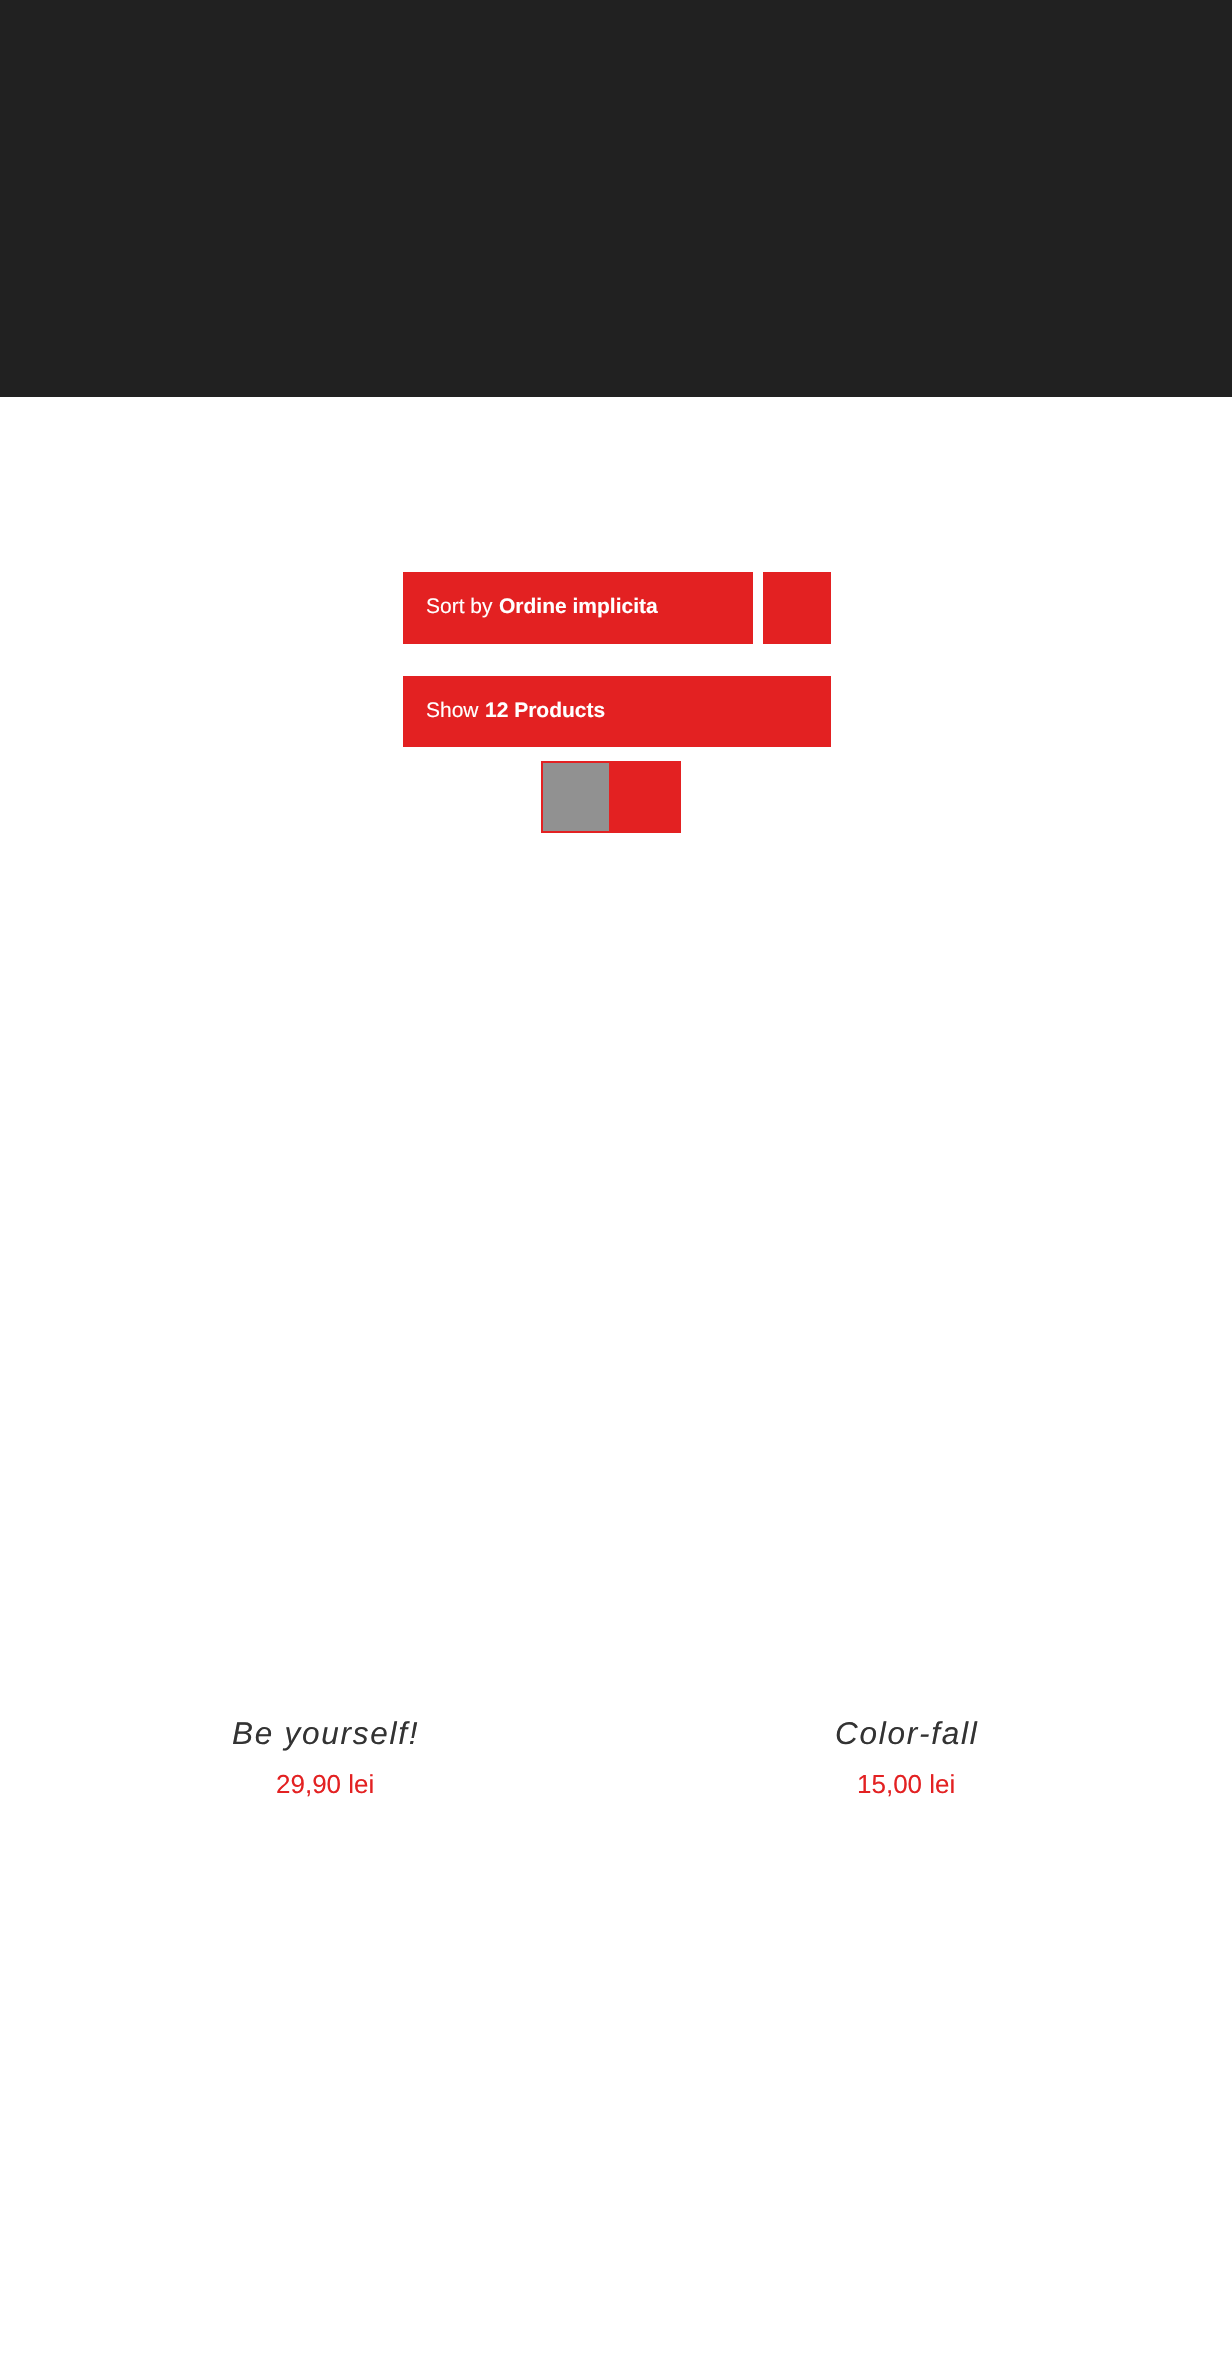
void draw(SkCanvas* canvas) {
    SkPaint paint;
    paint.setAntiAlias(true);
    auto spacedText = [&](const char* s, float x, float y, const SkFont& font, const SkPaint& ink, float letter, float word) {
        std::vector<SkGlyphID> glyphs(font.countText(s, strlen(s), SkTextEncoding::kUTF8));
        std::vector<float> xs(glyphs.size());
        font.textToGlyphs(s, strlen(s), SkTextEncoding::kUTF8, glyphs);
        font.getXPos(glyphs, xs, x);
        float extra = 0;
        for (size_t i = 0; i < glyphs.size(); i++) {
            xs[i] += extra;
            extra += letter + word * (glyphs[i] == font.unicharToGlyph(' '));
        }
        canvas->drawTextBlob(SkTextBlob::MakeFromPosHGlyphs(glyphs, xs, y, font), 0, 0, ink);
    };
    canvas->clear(0xFFFFFFFF);
    paint.setColor(0xFF212121);
    canvas->drawRect(SkRect::MakeXYWH(0, 0, 1232, 397), paint);
    paint.setColor(0xFFE32122);
    canvas->drawRect(SkRect::MakeXYWH(403, 572, 350, 72), paint);
    SkFont font1(fontMgr->matchFamilyStyle("Liberation Sans", SkFontStyle::Normal()), 21);
    font1.setSubpixel(true);
    paint.setColor(0xFFFFFFFF);
    canvas->drawString("Sort by", 426, 613, font1, paint);
    SkFont font2(fontMgr->matchFamilyStyle("Liberation Sans", SkFontStyle::Bold()), 21);
    font2.setSubpixel(true);
    canvas->drawString("Ordine implicita", 499, 613, font2, paint);
    paint.setColor(0xFFE32122);
    canvas->drawRect(SkRect::MakeXYWH(763, 572, 68, 72), paint);
    canvas->drawRect(SkRect::MakeXYWH(403, 676, 428, 71), paint);
    paint.setColor(0xFFFFFFFF);
    canvas->drawString("Show", 426, 717, font1, paint);
    canvas->drawString("12 Products", 485, 717, font2, paint);
    paint.setStyle(SkPaint::kStroke_Style);
    paint.setStrokeWidth(2);
    paint.setColor(0xFFE32122);
    canvas->drawRect(SkRect::MakeXYWH(542, 762, 138, 70), paint);
    paint.setStyle(SkPaint::kFill_Style);
    paint.setColor(0xFF919191);
    canvas->drawRect(SkRect::MakeXYWH(543, 763, 66, 68), paint);
    paint.setColor(0xFFE32122);
    canvas->drawRect(SkRect::MakeXYWH(609, 763, 70, 68), paint);
    SkFont font3(fontMgr->matchFamilyStyle("Liberation Sans", SkFontStyle::Italic()), 31.5f);
    font3.setSubpixel(true);
    paint.setColor(0xFF333333);
    spacedText("Be yourself!", 232, 1744, font3, paint, 1.75f, 0);
    SkFont font4(fontMgr->matchFamilyStyle("Liberation Sans", SkFontStyle::Normal()), 26);
    font4.setSubpixel(true);
    paint.setColor(0xFFE32122);
    canvas->drawString("29,90 lei", 276, 1793, font4, paint);
    paint.setColor(0xFF333333);
    spacedText("Color-fall", 835, 1744, font3, paint, 1.75f, 0);
    paint.setColor(0xFFE32122);
    canvas->drawString("15,00 lei", 857, 1793, font4, paint);
}
